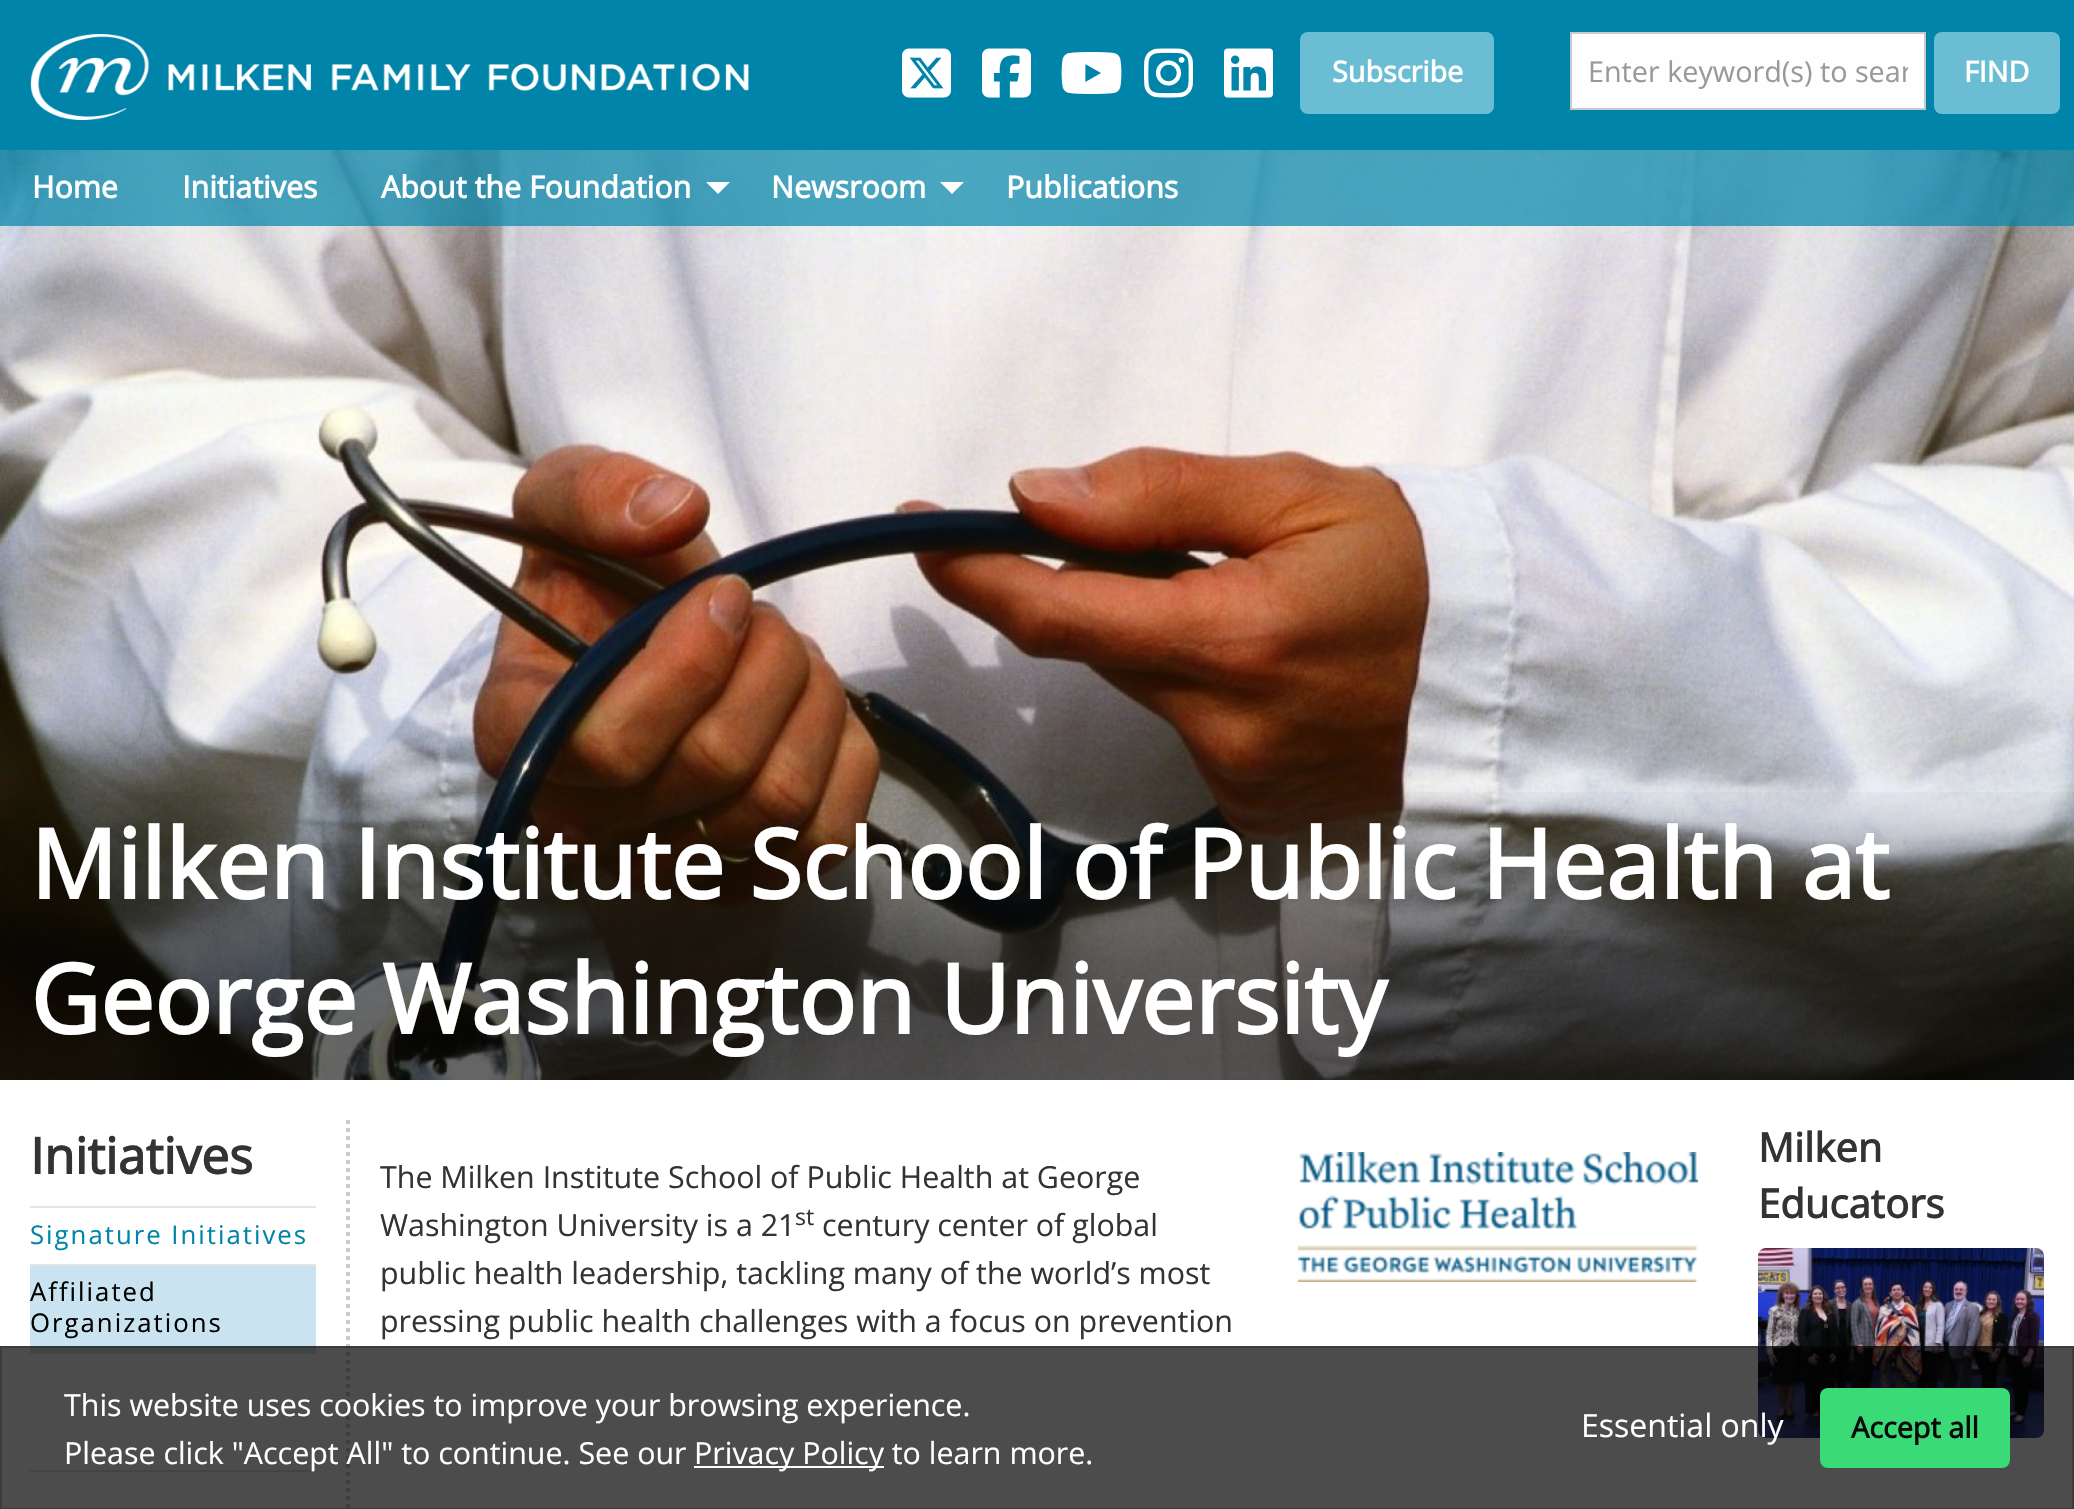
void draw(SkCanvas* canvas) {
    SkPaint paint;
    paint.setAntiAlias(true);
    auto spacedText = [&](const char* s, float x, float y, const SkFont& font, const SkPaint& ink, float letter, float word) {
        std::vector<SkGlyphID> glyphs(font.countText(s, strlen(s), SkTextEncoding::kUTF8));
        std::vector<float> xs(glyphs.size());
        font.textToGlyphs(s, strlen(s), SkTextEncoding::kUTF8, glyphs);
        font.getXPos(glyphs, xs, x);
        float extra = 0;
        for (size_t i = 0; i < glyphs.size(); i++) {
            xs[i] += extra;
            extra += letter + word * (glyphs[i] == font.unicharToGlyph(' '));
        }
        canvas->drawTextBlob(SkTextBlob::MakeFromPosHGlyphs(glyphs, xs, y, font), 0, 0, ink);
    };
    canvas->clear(0xFFFFFFFF);
    paint.setColor(0xFF0084A9);
    canvas->drawRect(SkRect::MakeXYWH(0, 0, 2074, 150), paint);
    canvas->drawImageRect(SkImages::DeferredFromEncodedData(SkData::MakeFromFileName("img1.png")), SkRect::MakeXYWH(30, 34, 719, 86), SkSamplingOptions());
    canvas->drawImageRect(SkImages::DeferredFromEncodedData(SkData::MakeFromFileName("img2.png")), SkRect::MakeXYWH(902, 48, 49, 50), SkSamplingOptions());
    canvas->drawImageRect(SkImages::DeferredFromEncodedData(SkData::MakeFromFileName("img3.png")), SkRect::MakeXYWH(982, 48, 49, 50), SkSamplingOptions());
    canvas->drawImageRect(SkImages::DeferredFromEncodedData(SkData::MakeFromFileName("img4.png")), SkRect::MakeXYWH(1061, 52, 61, 42), SkSamplingOptions());
    canvas->drawImageRect(SkImages::DeferredFromEncodedData(SkData::MakeFromFileName("img5.png")), SkRect::MakeXYWH(1144, 48, 49, 50), SkSamplingOptions());
    canvas->drawImageRect(SkImages::DeferredFromEncodedData(SkData::MakeFromFileName("img6.png")), SkRect::MakeXYWH(1224, 48, 49, 50), SkSamplingOptions());
    paint.setColor(0xFF6BBDD4);
    canvas->drawRoundRect(SkRect::MakeXYWH(1300, 32, 194, 82), 8, 8, paint);
    SkFont font1(fontMgr->matchFamilyStyle("Open Sans", SkFontStyle::Bold()), 28.75f);
    font1.setSubpixel(true);
    paint.setColor(0xFFFFFFFF);
    canvas->drawString("Subscribe", 1332, 82, font1, paint);
    paint.setColor(0xFFFEFEFE);
    canvas->drawRect(SkRect::MakeXYWH(1571, 33, 354, 76), paint);
    paint.setStyle(SkPaint::kStroke_Style);
    paint.setStrokeWidth(2);
    paint.setColor(0xFFCACACA);
    canvas->drawRect(SkRect::MakeXYWH(1571, 33, 354, 76), paint);
    canvas->save();
    canvas->clipRect(SkRect::MakeXYWH(1588, 52, 320, 38));
    SkFont font2(fontMgr->matchFamilyStyle("Open Sans", SkFontStyle::Normal()), 28.75f);
    font2.setSubpixel(true);
    paint.setStyle(SkPaint::kFill_Style);
    paint.setColor(0xFF999999);
    canvas->drawString("Enter keyword(s) to sear", 1588, 82, font2, paint);
    canvas->restore();
    paint.setColor(0xFF6BBDD4);
    canvas->drawRoundRect(SkRect::MakeXYWH(1934, 32, 126, 82), 8, 8, paint);
    paint.setColor(0xFFFFFFFF);
    canvas->drawString("FIND", 1964, 82, font1, paint);
    canvas->drawImageRect(SkImages::DeferredFromEncodedData(SkData::MakeFromFileName("img7.png")), SkRect::MakeXYWH(0, 150, 2074, 930), SkSamplingOptions());
    paint.setColor(0xB30084A9);
    canvas->drawRect(SkRect::MakeXYWH(0, 150, 2074, 76), paint);
    SkFont font3(fontMgr->matchFamilyStyle("Open Sans", SkFontStyle::Bold()), 30.4f);
    font3.setSubpixel(true);
    paint.setColor(0xFFFFFFFF);
    canvas->drawString("Home", 32, 198, font3, paint);
    canvas->drawString("Initiatives", 182, 198, font3, paint);
    canvas->drawString("About the Foundation", 381, 198, font3, paint);
    canvas->drawPath(SkPathBuilder().moveTo(706, 182).lineTo(730, 182).lineTo(718, 194).close().detach(), paint);
    canvas->drawString("Newsroom", 771, 198, font3, paint);
    canvas->drawPath(SkPathBuilder().moveTo(940, 182).lineTo(964, 182).lineTo(952, 194).close().detach(), paint);
    canvas->drawString("Publications", 1006, 198, font3, paint);
    canvas->drawImageRect(SkImages::DeferredFromEncodedData(SkData::MakeFromFileName("img8.png")), SkRect::MakeXYWH(0, 792, 2074, 288), SkSamplingOptions());
    SkFont font4(fontMgr->matchFamilyStyle("Open Sans", SkFontStyle::Bold()), 96);
    font4.setSubpixel(true);
    canvas->drawString("Milken Institute School of Public Health at", 30, 899, font4, paint);
    canvas->drawString("George Washington University", 30, 1034, font4, paint);
    SkFont font5(fontMgr->matchFamilyStyle("Open Sans", SkFontStyle::Bold()), 50);
    font5.setSubpixel(true);
    paint.setColor(0xFF333333);
    canvas->drawString("Initiatives", 30, 1174, font5, paint);
    paint.setColor(0xFFE5E5E5);
    canvas->drawRect(SkRect::MakeXYWH(30, 1206, 286, 2), paint);
    SkFont font6(fontMgr->matchFamilyStyle("Open Sans", SkFontStyle::Normal()), 25.75f);
    font6.setSubpixel(true);
    paint.setColor(0xFF0084A9);
    spacedText("Signature Initiatives", 30, 1244, font6, paint, 2, 0);
    paint.setColor(0xFFE5E5E5);
    canvas->drawRect(SkRect::MakeXYWH(30, 1264, 286, 2), paint);
    paint.setColor(0xFFC9E3F0);
    canvas->drawRect(SkRect::MakeXYWH(30, 1266, 286, 86), paint);
    paint.setColor(0xFF000000);
    spacedText("Affiliated", 30, 1301, font6, paint, 2, 0);
    spacedText("Organizations", 30, 1332, font6, paint, 2, 0);
    paint.setColor(0xFFE5E5E5);
    canvas->drawRect(SkRect::MakeXYWH(30, 1352, 286, 2), paint);
    canvas->drawRect(SkRect::MakeXYWH(30, 1470, 286, 2), paint);
    paint.setStyle(SkPaint::kStroke_Style);
    paint.setStrokeWidth(4);
    paint.setColor(0xFFCCCCCC);
    paint.setPathEffect(SkDashPathEffect::Make({{4, 4}}, 0));
    canvas->drawPath(SkPathBuilder().moveTo(348, 1120).lineTo(348, 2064).detach(), paint);
    paint.setPathEffect(nullptr);
    SkFont font7(fontMgr->matchFamilyStyle("Open Sans", SkFontStyle::Normal()), 30.4f);
    font7.setSubpixel(true);
    paint.setStyle(SkPaint::kFill_Style);
    paint.setColor(0xFF333333);
    canvas->drawString("The Milken Institute School of Public Health at George", 380, 1188, font7, paint);
    canvas->drawString("Washington University is a 21", 380, 1236, font7, paint);
    SkFont font8(fontMgr->matchFamilyStyle("Open Sans", SkFontStyle::Normal()), 23);
    font8.setSubpixel(true);
    canvas->drawString("st", 795, 1225, font8, paint);
    canvas->drawString("century center of global", 822, 1236, font7, paint);
    canvas->drawString("public health leadership, tackling many of the world’s most", 380, 1284, font7, paint);
    canvas->drawString("pressing public health challenges with a focus on prevention", 380, 1332, font7, paint);
    canvas->drawImageRect(SkImages::DeferredFromEncodedData(SkData::MakeFromFileName("img9.png")), SkRect::MakeXYWH(1298, 1152, 400, 130), SkSamplingOptions());
    SkFont font9(fontMgr->matchFamilyStyle("Open Sans", SkFontStyle::Bold()), 40);
    font9.setSubpixel(true);
    canvas->drawString("Milken", 1758, 1162, font9, paint);
    canvas->drawString("Educators", 1758, 1218, font9, paint);
    canvas->drawImageRect(SkImages::DeferredFromEncodedData(SkData::MakeFromFileName("img10.png")), SkRect::MakeXYWH(1758, 1248, 286, 190), SkSamplingOptions());
    paint.setColor(0xB3000000);
    canvas->drawRect(SkRect::MakeXYWH(0, 1346, 2074, 163), paint);
    paint.setStyle(SkPaint::kStroke_Style);
    paint.setStrokeWidth(2);
    paint.setColor(0x400A0A0A);
    canvas->drawRect(SkRect::MakeXYWH(1, 1347, 2072, 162), paint);
    paint.setStyle(SkPaint::kFill_Style);
    paint.setColor(0xFFFFFFFF);
    canvas->drawString("This website uses cookies to improve your browsing experience.", 64, 1416, font7, paint);
    canvas->drawString("Please click \"Accept All\" to continue. See our", 64, 1464, font7, paint);
    canvas->drawRect(SkRect::MakeXYWH(694, 1466, 190, 2), paint);
    canvas->drawString("Privacy Policy to learn more.", 694, 1464, font7, paint);
    SkFont font10(fontMgr->matchFamilyStyle("Open Sans", SkFontStyle::Normal()), 32);
    font10.setSubpixel(true);
    canvas->drawString("Essential only", 1581, 1437, font10, paint);
    paint.setColor(0xFF3ADB76);
    canvas->drawRoundRect(SkRect::MakeXYWH(1820, 1388, 190, 80), 8, 8, paint);
    paint.setColor(0xFF0A0A0A);
    canvas->drawString("Accept all", 1851, 1438, font1, paint);
}
